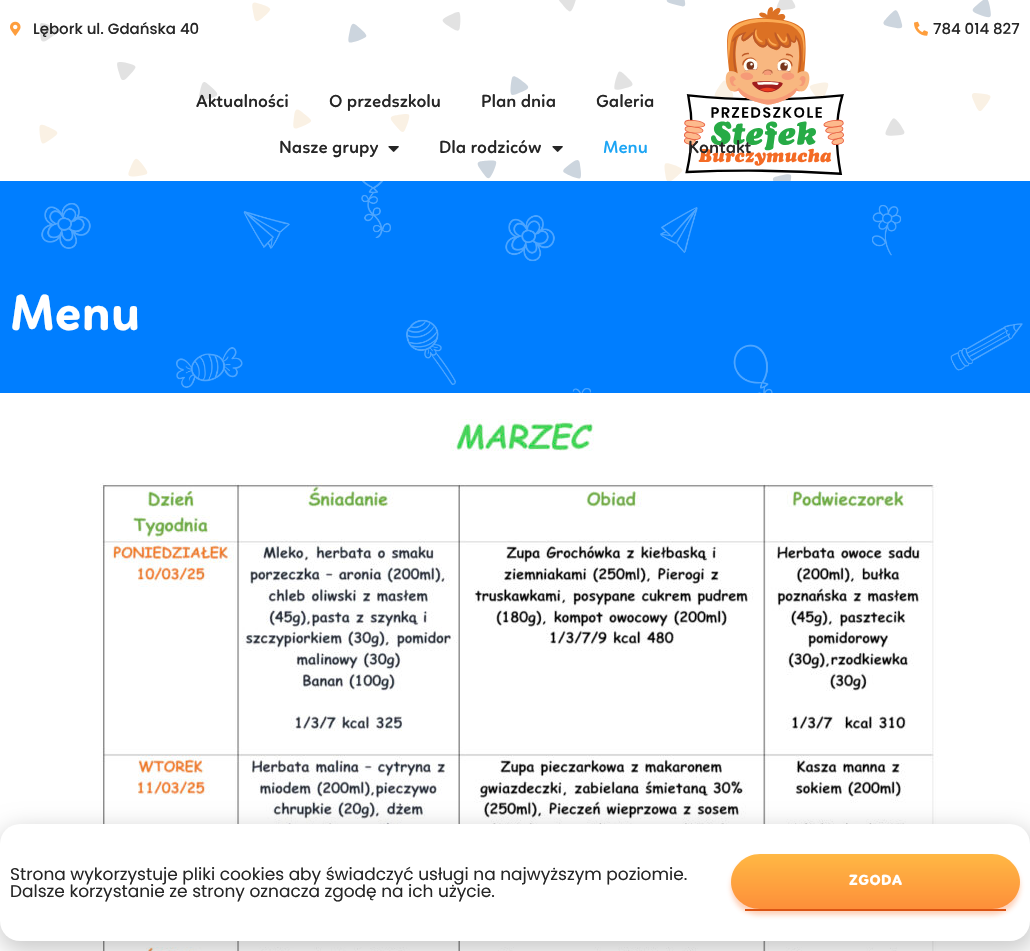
void draw(SkCanvas* canvas) {
    SkPaint paint;
    paint.setAntiAlias(true);
    auto spacedText = [&](const char* s, float x, float y, const SkFont& font, const SkPaint& ink, float letter, float word) {
        std::vector<SkGlyphID> glyphs(font.countText(s, strlen(s), SkTextEncoding::kUTF8));
        std::vector<float> xs(glyphs.size());
        font.textToGlyphs(s, strlen(s), SkTextEncoding::kUTF8, glyphs);
        font.getXPos(glyphs, xs, x);
        float extra = 0;
        for (size_t i = 0; i < glyphs.size(); i++) {
            xs[i] += extra;
            extra += letter + word * (glyphs[i] == font.unicharToGlyph(' '));
        }
        canvas->drawTextBlob(SkTextBlob::MakeFromPosHGlyphs(glyphs, xs, y, font), 0, 0, ink);
    };
    canvas->clear(0xFFFFFFFF);
    canvas->drawImageRect(SkImages::DeferredFromEncodedData(SkData::MakeFromFileName("img1.png")), SkRect::MakeXYWH(10, 21, 11, 15), SkSamplingOptions());
    canvas->drawImageRect(SkImages::DeferredFromEncodedData(SkData::MakeFromFileName("img3.png")), SkRect::MakeXYWH(39, 0, 952, 181), SkSamplingOptions());
    SkFont font1(fontMgr->matchFamilyStyle("Poppins", SkFontStyle(500, SkFontStyle::kNormal_Width, SkFontStyle::kUpright_Slant)), 15);
    font1.setSubpixel(true);
    paint.setColor(0xFF262626);
    canvas->drawString("Lębork ul. Gdańska 40", 33, 34, font1, paint);
    canvas->drawImageRect(SkImages::DeferredFromEncodedData(SkData::MakeFromFileName("img2.png")), SkRect::MakeXYWH(914, 21, 14, 15), SkSamplingOptions());
    canvas->drawString("784 014 827", 933, 34, font1, paint);
    SkFont font2(fontMgr->matchFamilyStyle("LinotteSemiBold", SkFontStyle(600, SkFontStyle::kNormal_Width, SkFontStyle::kUpright_Slant)), 18);
    font2.setSubpixel(true);
    canvas->drawString("Aktualności", 196, 107, font2, paint);
    canvas->drawString("O przedszkolu", 329, 107, font2, paint);
    canvas->drawString("Plan dnia", 481, 107, font2, paint);
    canvas->drawString("Galeria", 596, 107, font2, paint);
    canvas->drawImageRect(SkImages::DeferredFromEncodedData(SkData::MakeFromFileName("img4.png")), SkRect::MakeXYWH(684, 7, 160, 168), SkSamplingOptions());
    canvas->drawString("Nasze grupy", 279, 153, font2, paint);
    canvas->drawImageRect(SkImages::DeferredFromEncodedData(SkData::MakeFromFileName("img5.png")), SkRect::MakeXYWH(388, 146, 11, 6), SkSamplingOptions());
    canvas->drawString("Dla rodziców", 439, 153, font2, paint);
    canvas->drawImageRect(SkImages::DeferredFromEncodedData(SkData::MakeFromFileName("img5.png")), SkRect::MakeXYWH(552, 146, 11, 6), SkSamplingOptions());
    paint.setColor(0xFF1CA5F4);
    canvas->drawString("Menu", 603, 153, font2, paint);
    paint.setColor(0xFF262626);
    canvas->drawString("Kontakt", 688, 153, font2, paint);
    paint.setColor(0xFF007EFF);
    canvas->drawRect(SkRect::MakeXYWH(0, 181, 1030, 212), paint);
    canvas->drawImageRect(SkImages::DeferredFromEncodedData(SkData::MakeFromFileName("img6.png")), SkRect::MakeXYWH(41, 181, 982, 212), SkSamplingOptions());
    SkFont font3(fontMgr->matchFamilyStyle("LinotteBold", SkFontStyle::Bold()), 52);
    font3.setSubpixel(true);
    paint.setColor(0xFFFFFFFF);
    canvas->drawString("Menu", 10, 330, font3, paint);
    canvas->drawImageRect(SkImages::DeferredFromEncodedData(SkData::MakeFromFileName("img7.png")), SkRect::MakeXYWH(100, 419, 838, 532), SkSamplingOptions());
    paint.setColor(0x33000000);
    paint.setMaskFilter(SkMaskFilter::MakeBlur(kNormal_SkBlurStyle, 11.5f));
    canvas->drawRoundRect(SkRect::MakeXYWH(-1, 829, 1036, 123), 23, 23, paint);
    paint.setMaskFilter(nullptr);
    paint.setColor(0xFFFFFFFF);
    canvas->drawRoundRect(SkRect::MakeXYWH(0, 824, 1030, 117), 20, 20, paint);
    SkFont font4(fontMgr->matchFamilyStyle("Poppins", SkFontStyle::Normal()), 17);
    font4.setSubpixel(true);
    paint.setColor(0xFF262626);
    canvas->drawString("Strona wykorzystuje pliki cookies aby świadczyć usługi na najwyższym poziomie.", 10, 880, font4, paint);
    canvas->drawString("Dalsze korzystanie ze strony oznacza zgodę na ich użycie.", 10, 897, font4, paint);
    paint.setColor(0x4DFB6616);
    paint.setMaskFilter(SkMaskFilter::MakeBlur(kNormal_SkBlurStyle, 2.5f));
    canvas->drawRoundRect(SkRect::MakeXYWH(731, 858, 289, 57), 28.5f, 28.5f, paint);
    paint.setMaskFilter(nullptr);
    {
        const SkColor colors[] = {0xFFFFB844, 0xFFFD8F3A};
        const float stops[] = {0, 1};
        const SkPoint ends[] = {{876, 854}, {876, 909}};
        paint.setShader(SkGradientShader::MakeLinear(ends, colors, stops, 2, SkTileMode::kClamp));
        paint.setAlpha(255);
    }
    canvas->drawPath(SkPathBuilder().moveTo(760, 854).lineTo(992, 854).cubicTo(1007, 854, 1020, 867, 1020, 882).cubicTo(1020, 897, 1007, 909, 992, 909).lineTo(760, 909).cubicTo(744, 909, 731, 897, 731, 882).cubicTo(731, 867, 744, 854, 760, 854).close().detach(), paint);
    paint.setShader(nullptr);
    paint.setColor(0xFFDB5414);
    canvas->drawRect(SkRect::MakeXYWH(745, 909, 261, 2), paint);
    SkFont font5(fontMgr->matchFamilyStyle("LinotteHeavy", SkFontStyle(900, SkFontStyle::kNormal_Width, SkFontStyle::kUpright_Slant)), 15);
    font5.setSubpixel(true);
    paint.setColor(0xFFFFFFFF);
    spacedText("ZGODA", 849, 885, font5, paint, 0.5f, 0);
}
